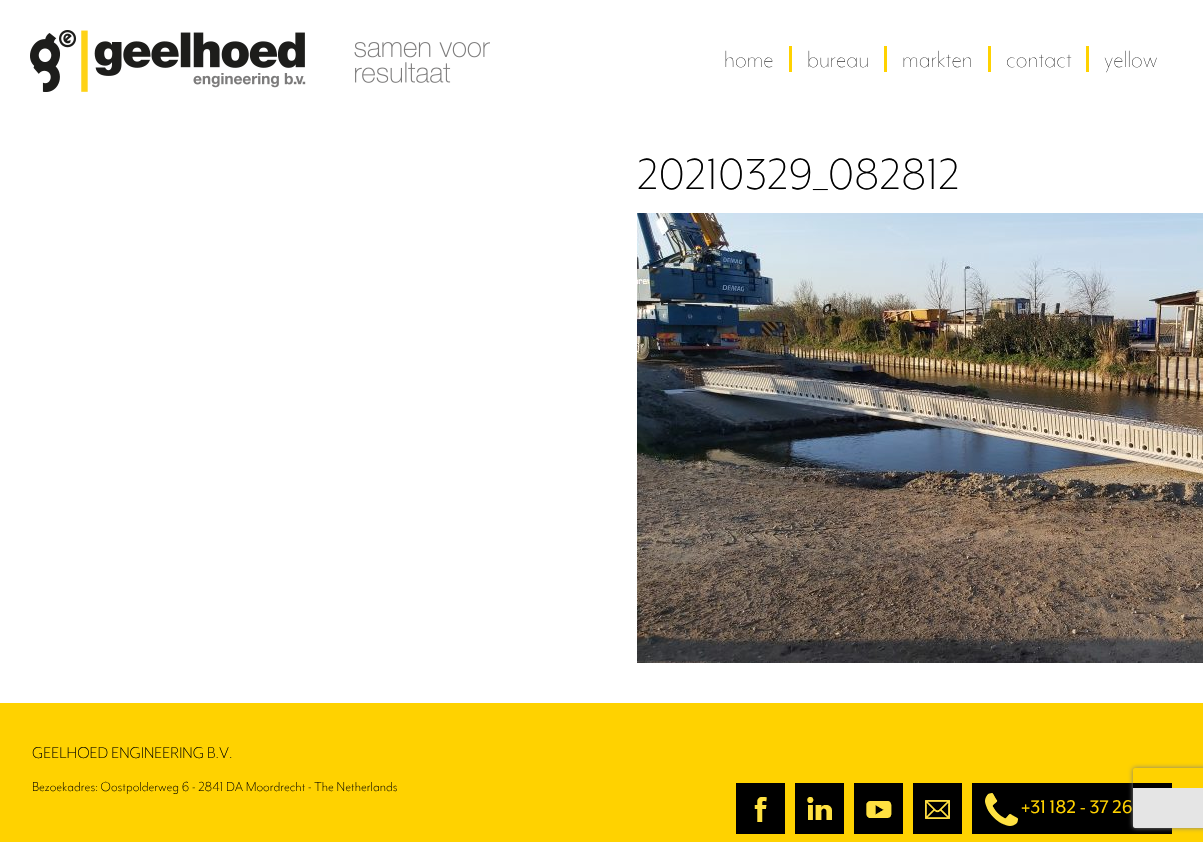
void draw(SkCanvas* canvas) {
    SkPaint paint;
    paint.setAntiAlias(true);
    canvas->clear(0xFFFFFFFF);
    canvas->drawImageRect(SkImages::DeferredFromEncodedData(SkData::MakeFromFileName("img1.png")), SkRect::MakeXYWH(30, 30, 460, 62), SkSamplingOptions());
    SkFont font1(fontMgr->matchFamilyStyle("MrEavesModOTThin", SkFontStyle(100, SkFontStyle::kNormal_Width, SkFontStyle::kUpright_Slant)), 27);
    font1.setSubpixel(true);
    paint.setColor(0xFF000000);
    canvas->drawString("home", 724, 67, font1, paint);
    paint.setColor(0xFFFFD200);
    canvas->drawRect(SkRect::MakeXYWH(789, 46, 3, 26), paint);
    paint.setColor(0xFF000000);
    canvas->drawString("bureau", 807, 67, font1, paint);
    paint.setColor(0xFFFFD200);
    canvas->drawRect(SkRect::MakeXYWH(884, 46, 3, 26), paint);
    paint.setColor(0xFF000000);
    canvas->drawString("markten", 902, 67, font1, paint);
    paint.setColor(0xFFFFD200);
    canvas->drawRect(SkRect::MakeXYWH(988, 46, 3, 26), paint);
    paint.setColor(0xFF000000);
    canvas->drawString("contact", 1006, 67, font1, paint);
    paint.setColor(0xFFFFD200);
    canvas->drawRect(SkRect::MakeXYWH(1086, 46, 3, 26), paint);
    paint.setColor(0xFF000000);
    canvas->drawString("yellow", 1104, 67, font1, paint);
    SkFont font2(fontMgr->matchFamilyStyle("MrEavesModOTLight", SkFontStyle(300, SkFontStyle::kNormal_Width, SkFontStyle::kUpright_Slant)), 50);
    font2.setSubpixel(true);
    canvas->drawString("20210329_082812", 637, 189, font2, paint);
    canvas->drawImageRect(SkImages::DeferredFromEncodedData(SkData::MakeFromFileName("img2.png")), SkRect::MakeXYWH(637, 213, 566, 450), SkSamplingOptions());
    paint.setColor(0xFFFFD200);
    canvas->drawRect(SkRect::MakeXYWH(0, 703, 1203, 139), paint);
    SkFont font3(fontMgr->matchFamilyStyle("MrEavesModOTLight", SkFontStyle(300, SkFontStyle::kNormal_Width, SkFontStyle::kUpright_Slant)), 18);
    font3.setSubpixel(true);
    paint.setColor(0xFF000000);
    canvas->drawString("GEELHOED ENGINEERING B.V.", 32, 758, font3, paint);
    SkFont font4(fontMgr->matchFamilyStyle("MrEavesModOTLight", SkFontStyle(300, SkFontStyle::kNormal_Width, SkFontStyle::kUpright_Slant)), 15);
    font4.setSubpixel(true);
    canvas->drawString("Bezoekadres: Oostpolderweg 6 - 2841 DA Moordrecht - The Netherlands", 32, 791, font4, paint);
    canvas->drawRect(SkRect::MakeXYWH(736, 783, 49, 51), paint);
    canvas->drawImageRect(SkImages::DeferredFromEncodedData(SkData::MakeFromFileName("img3.png")), SkRect::MakeXYWH(754, 797, 13, 25), SkSamplingOptions());
    canvas->drawRect(SkRect::MakeXYWH(795, 783, 49, 51), paint);
    canvas->drawImageRect(SkImages::DeferredFromEncodedData(SkData::MakeFromFileName("img4.png")), SkRect::MakeXYWH(807, 797, 25, 23), SkSamplingOptions());
    canvas->drawRect(SkRect::MakeXYWH(854, 783, 49, 51), paint);
    canvas->drawImageRect(SkImages::DeferredFromEncodedData(SkData::MakeFromFileName("img5.png")), SkRect::MakeXYWH(866, 801, 26, 17), SkSamplingOptions());
    canvas->drawRect(SkRect::MakeXYWH(913, 783, 49, 51), paint);
    canvas->drawImageRect(SkImages::DeferredFromEncodedData(SkData::MakeFromFileName("img6.png")), SkRect::MakeXYWH(925, 800, 25, 19), SkSamplingOptions());
    canvas->drawRect(SkRect::MakeXYWH(972, 783, 200, 51), paint);
    canvas->drawImageRect(SkImages::DeferredFromEncodedData(SkData::MakeFromFileName("img7.png")), SkRect::MakeXYWH(985, 793, 33, 33), SkSamplingOptions());
    SkFont font5(fontMgr->matchFamilyStyle("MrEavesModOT", SkFontStyle::Normal()), 21);
    font5.setSubpixel(true);
    paint.setColor(0xFFFFD200);
    canvas->drawString("+31 182 - 37 26", 1021, 813, font5, paint);
    canvas->save();
    canvas->clipPath(SkPathBuilder(SkPathFillType::kEvenOdd).moveTo(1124, 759).lineTo(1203, 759).lineTo(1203, 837).lineTo(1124, 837).close().moveTo(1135, 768).lineTo(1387, 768).cubicTo(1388, 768, 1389, 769, 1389, 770).lineTo(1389, 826).cubicTo(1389, 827, 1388, 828, 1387, 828).lineTo(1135, 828).cubicTo(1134, 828, 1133, 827, 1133, 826).lineTo(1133, 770).cubicTo(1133, 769, 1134, 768, 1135, 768).close().detach(), true);
    paint.setColor(0xFF808080);
    paint.setMaskFilter(SkMaskFilter::MakeBlur(kNormal_SkBlurStyle, 2.5f));
    canvas->drawRoundRect(SkRect::MakeXYWH(1133, 768, 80, 60), 2, 2, paint);
    paint.setMaskFilter(nullptr);
    canvas->restore();
    paint.setColor(0xFFE5E5E5);
    canvas->drawPath(SkPathBuilder().moveTo(1133, 788).lineTo(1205, 788).lineTo(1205, 826).cubicTo(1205, 827, 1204, 828, 1203, 828).lineTo(1135, 828).cubicTo(1134, 828, 1133, 827, 1133, 826).close().detach(), paint);
}
